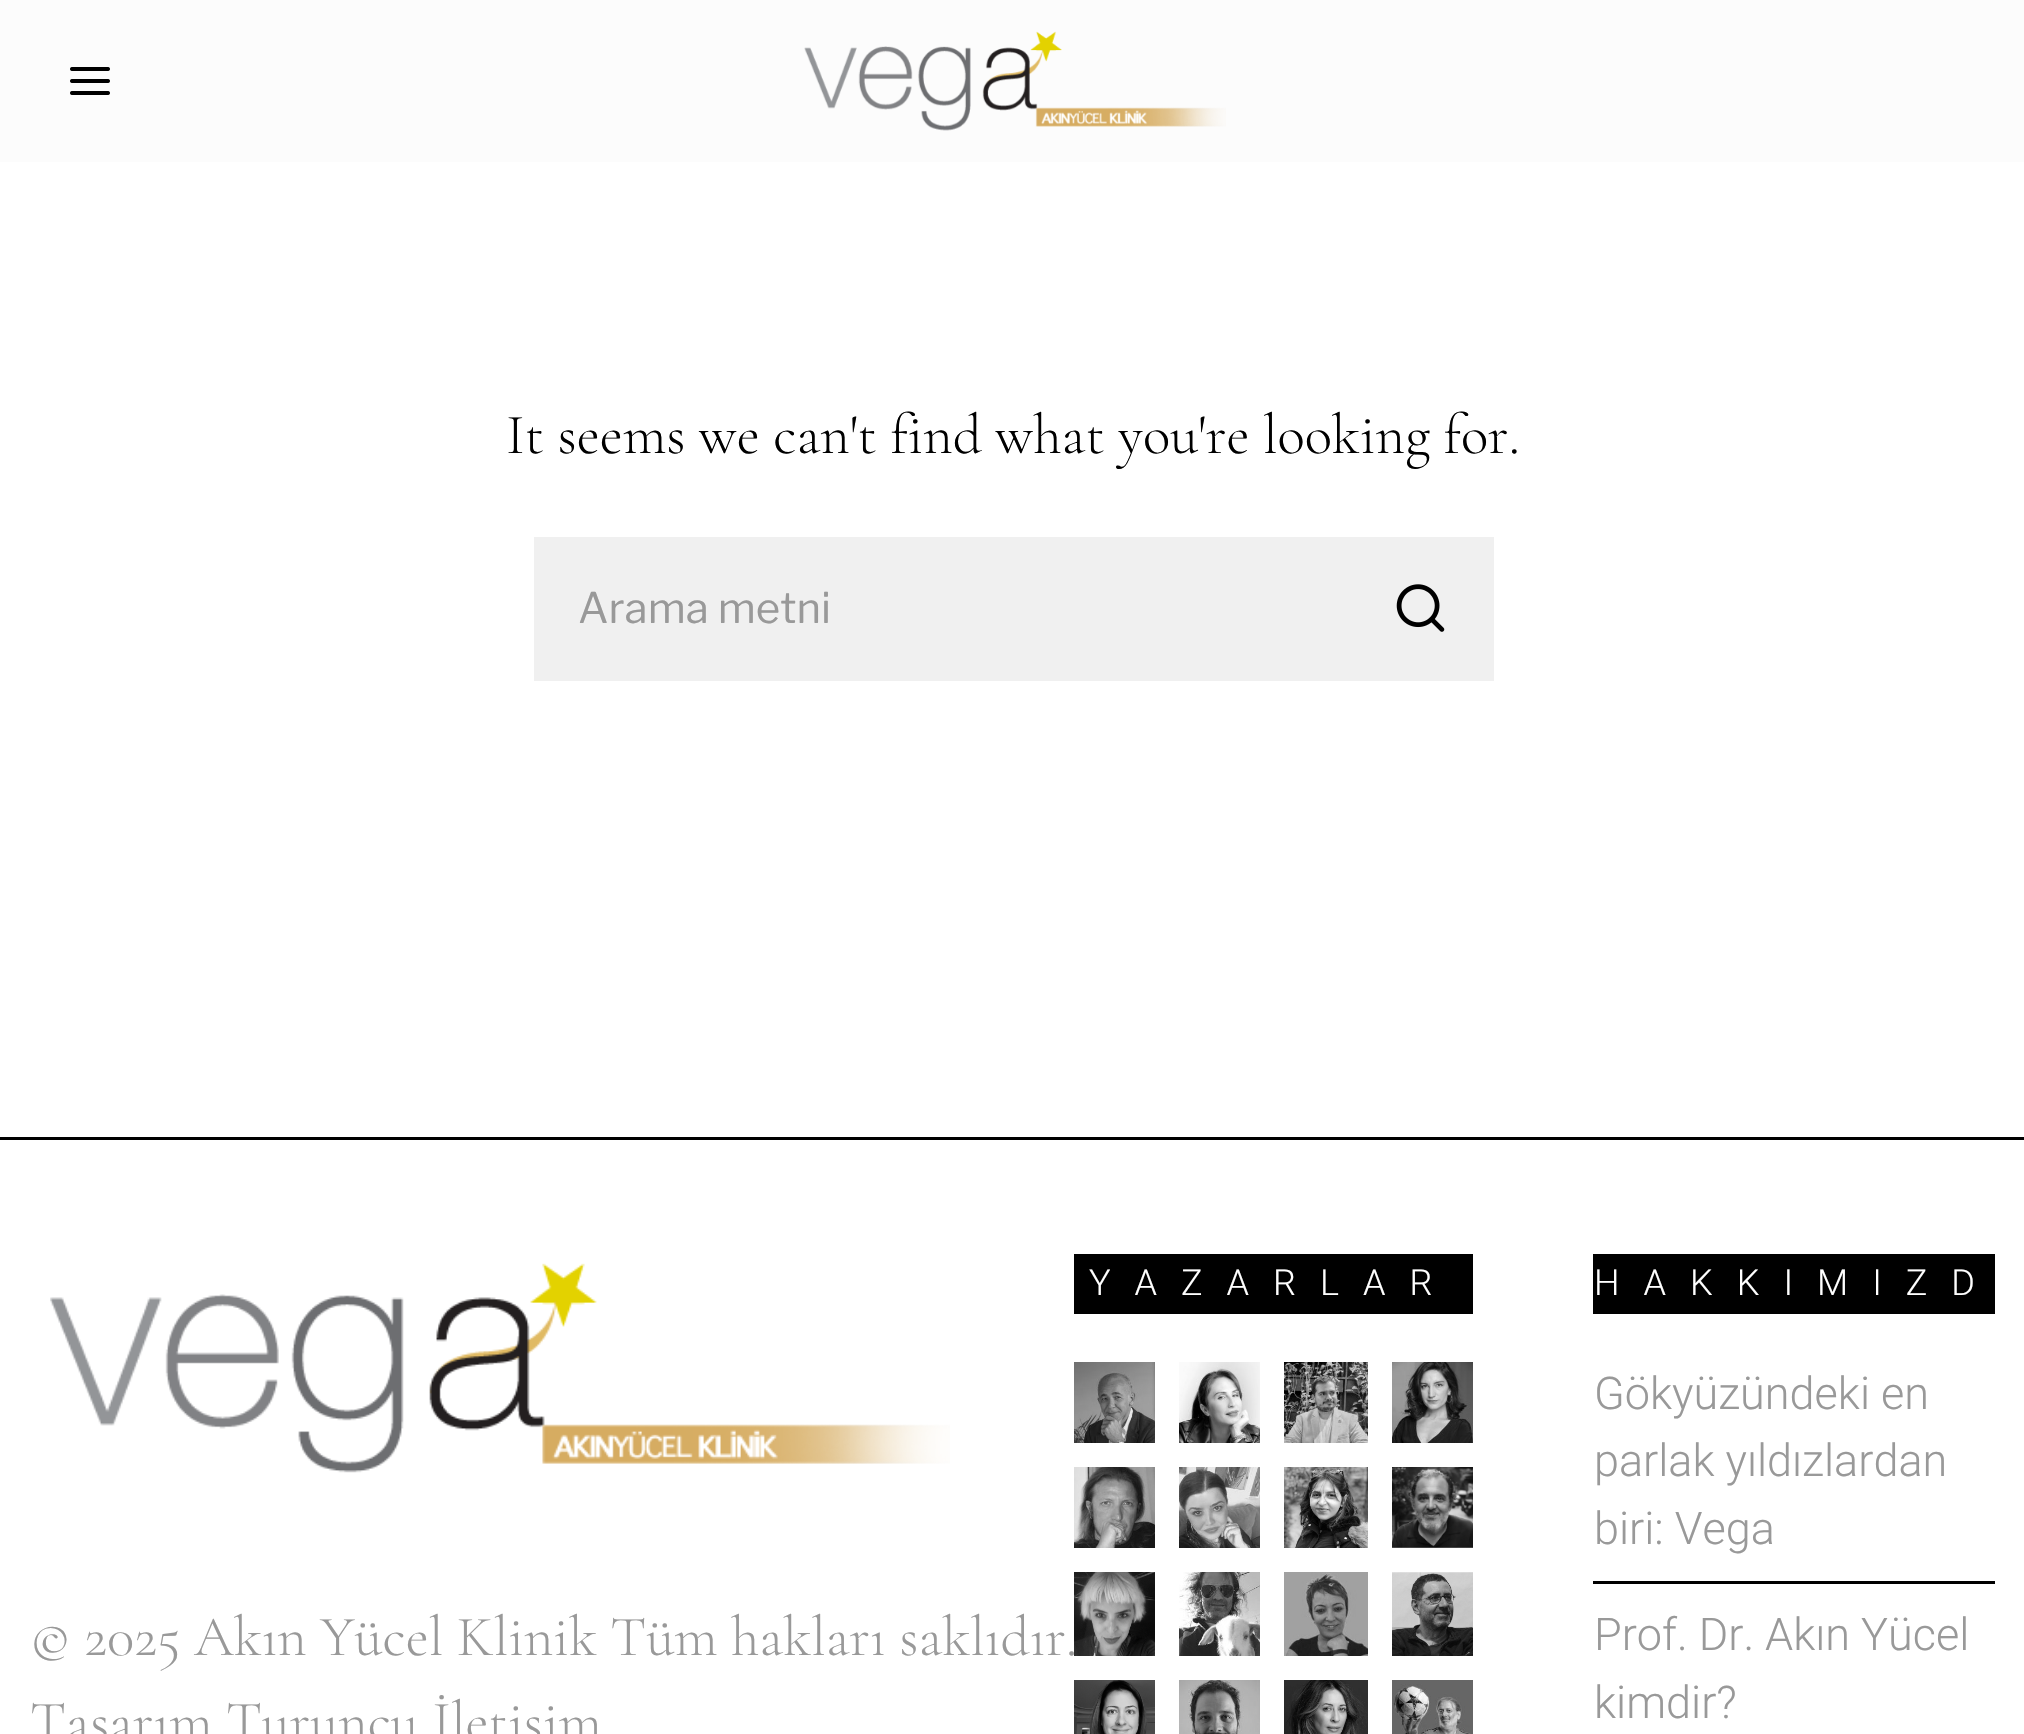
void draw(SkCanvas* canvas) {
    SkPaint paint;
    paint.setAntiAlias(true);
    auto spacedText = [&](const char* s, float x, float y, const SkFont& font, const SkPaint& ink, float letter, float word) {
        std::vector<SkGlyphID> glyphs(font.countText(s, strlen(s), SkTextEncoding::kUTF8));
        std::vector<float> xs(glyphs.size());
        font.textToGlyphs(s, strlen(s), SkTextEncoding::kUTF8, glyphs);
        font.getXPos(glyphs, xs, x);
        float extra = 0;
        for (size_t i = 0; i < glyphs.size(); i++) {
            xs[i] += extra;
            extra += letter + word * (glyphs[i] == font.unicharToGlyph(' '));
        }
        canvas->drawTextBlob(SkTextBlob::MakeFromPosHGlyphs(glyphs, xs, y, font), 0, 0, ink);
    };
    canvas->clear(0xFFFFFFFF);
    paint.setColor(0xFFFCFCFC);
    canvas->drawRect(SkRect::MakeXYWH(0, 0, 2024, 162), paint);
    canvas->drawImageRect(SkImages::DeferredFromEncodedData(SkData::MakeFromFileName("img1.png")), SkRect::MakeXYWH(70, 67, 40, 28), SkSamplingOptions());
    canvas->drawImageRect(SkImages::DeferredFromEncodedData(SkData::MakeFromFileName("img2.png")), SkRect::MakeXYWH(804, 31, 422, 100), SkSamplingOptions());
    SkFont font1(fontMgr->matchFamilyStyle("Cormorant Garamond", SkFontStyle(300, SkFontStyle::kNormal_Width, SkFontStyle::kUpright_Slant)), 57);
    font1.setSubpixel(true);
    paint.setColor(0xFF000000);
    canvas->drawString("It seems we can't find what you're looking for.", 506, 453, font1, paint);
    paint.setColor(0xFFF0F0F0);
    canvas->drawRect(SkRect::MakeXYWH(534, 537, 960, 144), paint);
    SkFont font2(fontMgr->matchFamilyStyle("Libre Franklin", SkFontStyle(100, SkFontStyle::kNormal_Width, SkFontStyle::kUpright_Slant)), 42);
    font2.setSubpixel(true);
    paint.setColor(0xFF999999);
    canvas->drawString("Arama metni", 578, 623, font2, paint);
    canvas->drawImageRect(SkImages::DeferredFromEncodedData(SkData::MakeFromFileName("img3.png")), SkRect::MakeXYWH(1396, 584, 49, 48), SkSamplingOptions());
    paint.setColor(0xFF000000);
    canvas->drawRect(SkRect::MakeXYWH(0, 1137, 2024, 3), paint);
    canvas->drawImageRect(SkImages::DeferredFromEncodedData(SkData::MakeFromFileName("img4.png")), SkRect::MakeXYWH(50, 1263, 900, 210), SkSamplingOptions());
    paint.setColor(0xFF999999);
    canvas->drawString("© 2025 Akın Yücel Klinik Tüm hakları saklıdır.", 30, 1655, font1, paint);
    canvas->drawString("Tasarım Turuncu İletişim", 30, 1740, font1, paint);
    paint.setColor(0xFF000000);
    canvas->drawRect(SkRect::MakeXYWH(1074, 1254, 399, 60), paint);
    SkFont font3(fontMgr->matchFamilyStyle("Roboto", SkFontStyle(300, SkFontStyle::kNormal_Width, SkFontStyle::kUpright_Slant)), 36);
    font3.setSubpixel(true);
    paint.setColor(0xFFFFFFFF);
    spacedText("YAZARLAR", 1089, 1295, font3, paint, 24, 0);
    canvas->drawImageRect(SkImages::DeferredFromEncodedData(SkData::MakeFromFileName("img5.png")), SkRect::MakeXYWH(1074, 1362, 81, 81), SkSamplingOptions());
    canvas->drawImageRect(SkImages::DeferredFromEncodedData(SkData::MakeFromFileName("img6.png")), SkRect::MakeXYWH(1179, 1362, 81, 81), SkSamplingOptions());
    canvas->drawImageRect(SkImages::DeferredFromEncodedData(SkData::MakeFromFileName("img7.png")), SkRect::MakeXYWH(1284, 1362, 84, 81), SkSamplingOptions());
    canvas->drawImageRect(SkImages::DeferredFromEncodedData(SkData::MakeFromFileName("img8.png")), SkRect::MakeXYWH(1392, 1362, 81, 81), SkSamplingOptions());
    canvas->drawImageRect(SkImages::DeferredFromEncodedData(SkData::MakeFromFileName("img9.png")), SkRect::MakeXYWH(1074, 1467, 81, 81), SkSamplingOptions());
    canvas->drawImageRect(SkImages::DeferredFromEncodedData(SkData::MakeFromFileName("img10.png")), SkRect::MakeXYWH(1179, 1467, 81, 81), SkSamplingOptions());
    canvas->drawImageRect(SkImages::DeferredFromEncodedData(SkData::MakeFromFileName("img11.png")), SkRect::MakeXYWH(1284, 1467, 84, 81), SkSamplingOptions());
    canvas->drawImageRect(SkImages::DeferredFromEncodedData(SkData::MakeFromFileName("img12.png")), SkRect::MakeXYWH(1392, 1467, 81, 81), SkSamplingOptions());
    canvas->drawImageRect(SkImages::DeferredFromEncodedData(SkData::MakeFromFileName("img13.png")), SkRect::MakeXYWH(1074, 1572, 81, 84), SkSamplingOptions());
    canvas->drawImageRect(SkImages::DeferredFromEncodedData(SkData::MakeFromFileName("img14.png")), SkRect::MakeXYWH(1179, 1572, 81, 84), SkSamplingOptions());
    canvas->drawImageRect(SkImages::DeferredFromEncodedData(SkData::MakeFromFileName("img15.png")), SkRect::MakeXYWH(1284, 1572, 84, 84), SkSamplingOptions());
    canvas->drawImageRect(SkImages::DeferredFromEncodedData(SkData::MakeFromFileName("img16.png")), SkRect::MakeXYWH(1392, 1572, 81, 84), SkSamplingOptions());
    canvas->drawImageRect(SkImages::DeferredFromEncodedData(SkData::MakeFromFileName("img17.png")), SkRect::MakeXYWH(1074, 1680, 81, 54), SkSamplingOptions());
    canvas->drawImageRect(SkImages::DeferredFromEncodedData(SkData::MakeFromFileName("img18.png")), SkRect::MakeXYWH(1179, 1680, 81, 54), SkSamplingOptions());
    canvas->drawImageRect(SkImages::DeferredFromEncodedData(SkData::MakeFromFileName("img19.png")), SkRect::MakeXYWH(1284, 1680, 84, 54), SkSamplingOptions());
    canvas->drawImageRect(SkImages::DeferredFromEncodedData(SkData::MakeFromFileName("img20.png")), SkRect::MakeXYWH(1392, 1680, 81, 54), SkSamplingOptions());
    paint.setColor(0xFF000000);
    canvas->drawRect(SkRect::MakeXYWH(1593, 1254, 402, 60), paint);
    paint.setColor(0xFFFFFFFF);
    spacedText("HAKKIMIZD", 1594, 1295, font3, paint, 24, 0);
    SkFont font4(fontMgr->matchFamilyStyle("Roboto", SkFontStyle(300, SkFontStyle::kNormal_Width, SkFontStyle::kUpright_Slant)), 45);
    font4.setSubpixel(true);
    paint.setColor(0xFF999999);
    canvas->drawString("Gökyüzündeki en", 1594, 1409, font4, paint);
    canvas->drawString("parlak yıldızlardan", 1594, 1476, font4, paint);
    canvas->drawString("biri: Vega", 1594, 1544, font4, paint);
    paint.setColor(0xFF000000);
    canvas->drawRect(SkRect::MakeXYWH(1593, 1581, 402, 3), paint);
    paint.setColor(0xFF999999);
    canvas->drawString("Prof. Dr. Akın Yücel", 1594, 1650, font4, paint);
    canvas->drawString("kimdir?", 1594, 1718, font4, paint);
}
